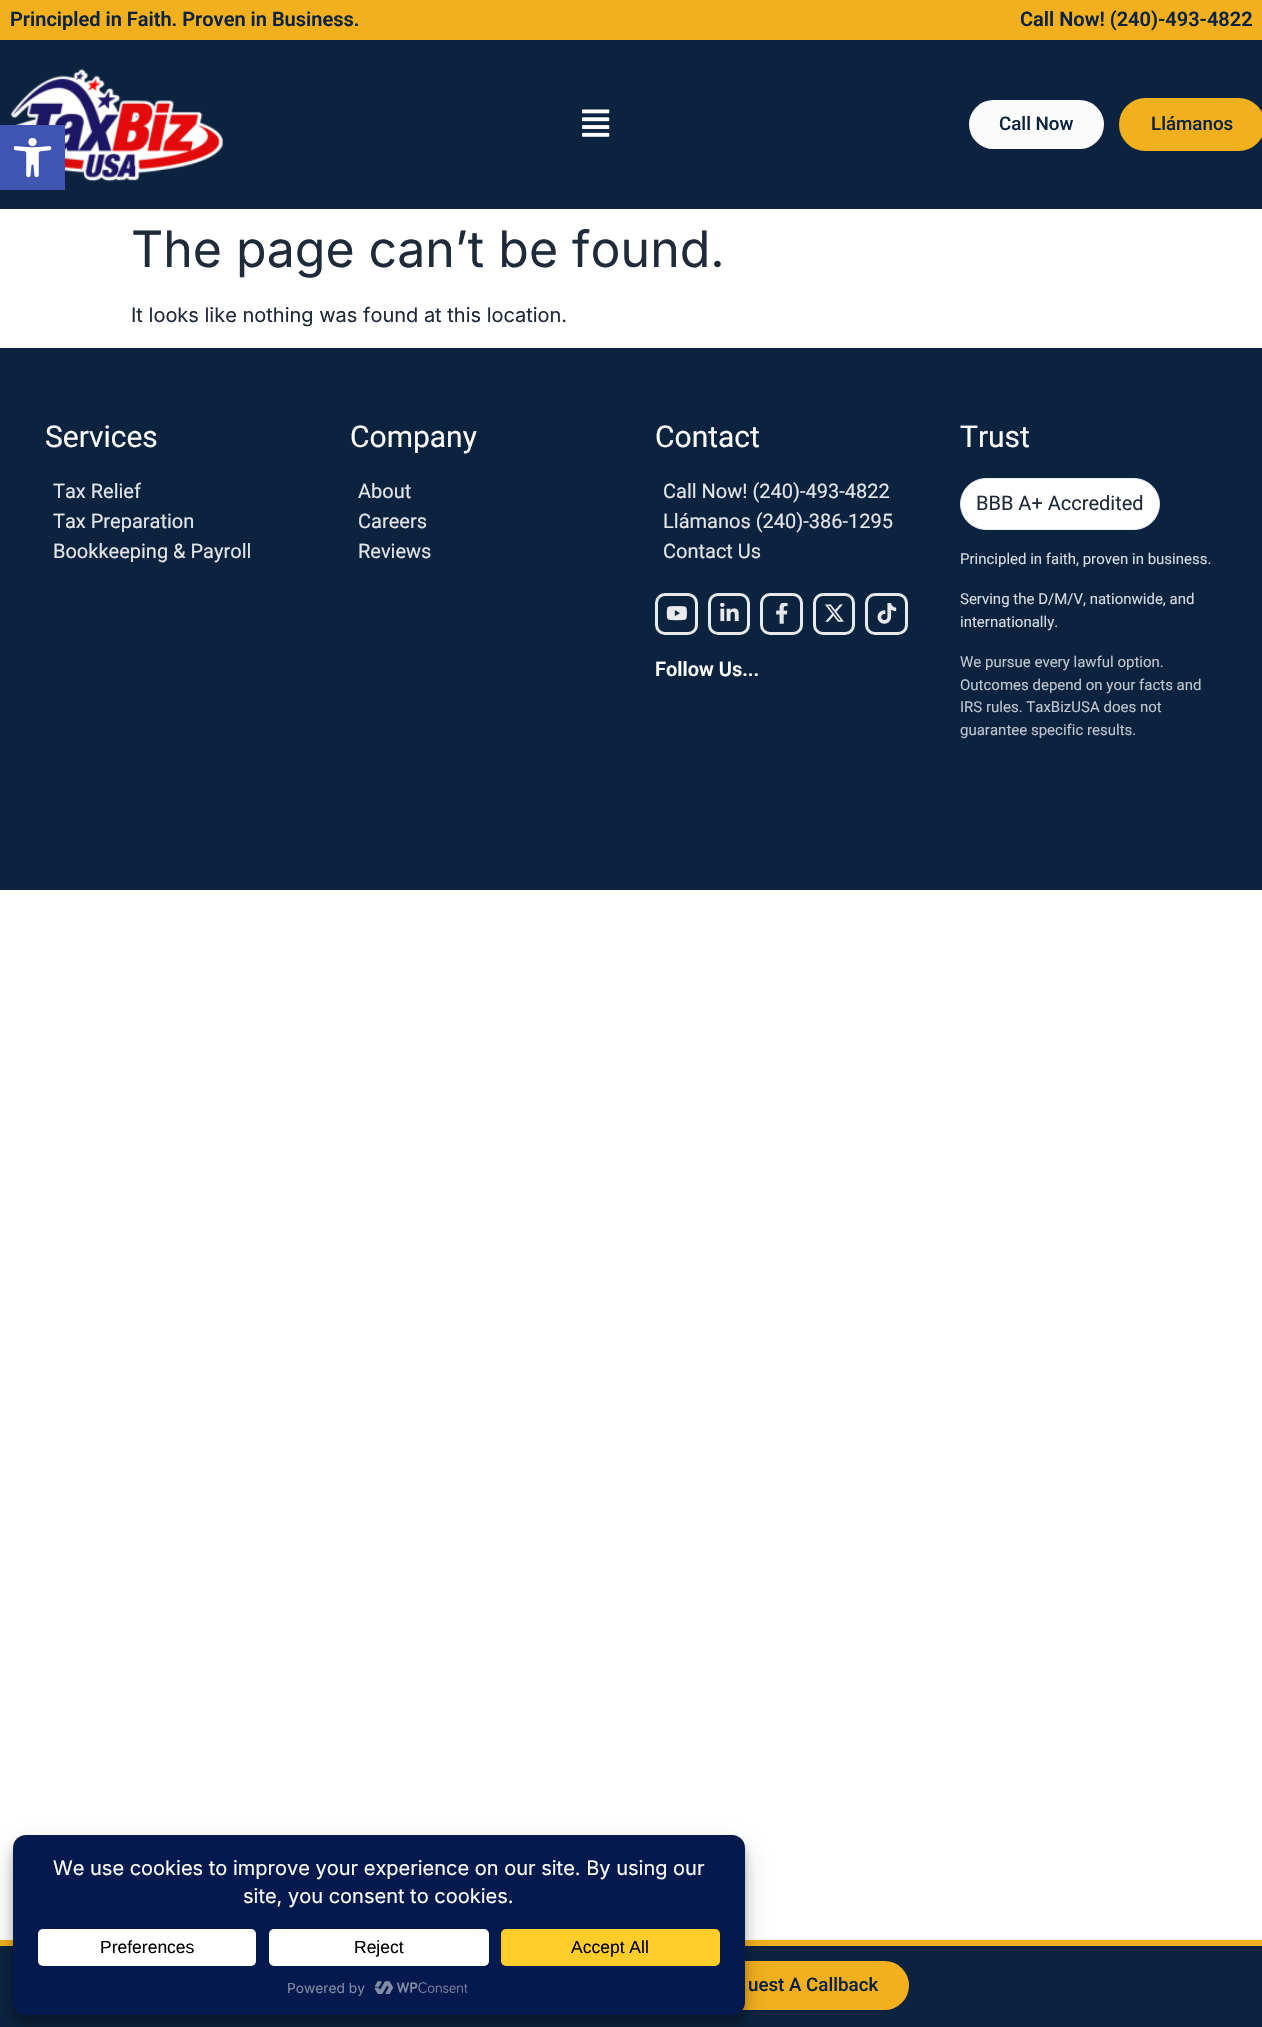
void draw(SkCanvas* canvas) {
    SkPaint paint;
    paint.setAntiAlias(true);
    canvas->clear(0xFFFFFFFF);
    paint.setColor(0xFFF2B01E);
    canvas->drawRect(SkRect::MakeXYWH(0, 0, 1262, 40), paint);
    SkFont font1(fontMgr->matchFamilyStyle("Roboto", SkFontStyle(600, SkFontStyle::kNormal_Width, SkFontStyle::kUpright_Slant)), 20);
    font1.setSubpixel(true);
    paint.setColor(0xFF0C2340);
    canvas->drawString("Principled in Faith. Proven in Business.", 10, 26, font1, paint);
    canvas->drawString("Call Now! (240)-493-4822", 1020, 26, font1, paint);
    canvas->drawRect(SkRect::MakeXYWH(0, 40, 1262, 169), paint);
    canvas->drawImageRect(SkImages::DeferredFromEncodedData(SkData::MakeFromFileName("img1.png")), SkRect::MakeXYWH(10, 68, 214, 114), SkSamplingOptions());
    canvas->drawImageRect(SkImages::DeferredFromEncodedData(SkData::MakeFromFileName("img2.png")), SkRect::MakeXYWH(581, 109, 29, 28), SkSamplingOptions());
    paint.setColor(0xFFFBFBFB);
    canvas->drawRoundRect(SkRect::MakeXYWH(969, 100, 135, 49), 24.5f, 24.5f, paint);
    SkFont font2(fontMgr->matchFamilyStyle("Roboto", SkFontStyle(500, SkFontStyle::kNormal_Width, SkFontStyle::kUpright_Slant)), 18.75f);
    font2.setSubpixel(true);
    paint.setColor(0xFF0C2340);
    canvas->drawString("Call Now", 999, 130, font2, paint);
    paint.setColor(0xFFF2B01E);
    canvas->drawRoundRect(SkRect::MakeXYWH(1120.5f, 99.5f, 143, 50), 25, 25, paint);
    paint.setStyle(SkPaint::kStroke_Style);
    paint.setStrokeWidth(3);
    canvas->drawRoundRect(SkRect::MakeXYWH(1120.5f, 99.5f, 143, 50), 25, 25, paint);
    paint.setStyle(SkPaint::kFill_Style);
    paint.setColor(0xFF0C2340);
    canvas->drawString("Llámanos", 1151, 130, font2, paint);
    SkFont font3(fontMgr->matchFamilyStyle("Inter", SkFontStyle::Normal()), 50);
    font3.setSubpixel(true);
    paint.setColor(0xFF1F2A3A);
    canvas->drawString("The page can’t be found.", 131, 267, font3, paint);
    SkFont font4(fontMgr->matchFamilyStyle("Inter", SkFontStyle::Normal()), 20);
    font4.setSubpixel(true);
    canvas->drawString("It looks like nothing was found at this location.", 131, 322, font4, paint);
    paint.setColor(0xFF0C2340);
    canvas->drawRect(SkRect::MakeXYWH(0, 348, 1262, 542), paint);
    SkFont font5(fontMgr->matchFamilyStyle("Roboto", SkFontStyle::Normal()), 30);
    font5.setSubpixel(true);
    paint.setColor(0xFFFBFBFB);
    canvas->drawString("Services", 45, 447, font5, paint);
    SkFont font6(fontMgr->matchFamilyStyle("Roboto", SkFontStyle::Normal()), 20);
    font6.setSubpixel(true);
    paint.setColor(0xFFE3E5E8);
    canvas->drawString("Tax Relief", 53, 498, font6, paint);
    canvas->drawString("Tax Preparation", 53, 528, font6, paint);
    canvas->drawString("Bookkeeping & Payroll", 53, 558, font6, paint);
    paint.setColor(0xFFFBFBFB);
    canvas->drawString("Company", 350, 447, font5, paint);
    paint.setColor(0xFFE3E5E8);
    canvas->drawString("About", 358, 498, font6, paint);
    canvas->drawString("Careers", 358, 528, font6, paint);
    canvas->drawString("Reviews", 358, 558, font6, paint);
    paint.setColor(0xFFFBFBFB);
    canvas->drawString("Contact", 655, 447, font5, paint);
    paint.setColor(0xFFE3E5E8);
    canvas->drawString("Call Now! (240)-493-4822", 663, 498, font6, paint);
    canvas->drawString("Llámanos (240)-386-1295", 663, 528, font6, paint);
    canvas->drawString("Contact Us", 663, 558, font6, paint);
    paint.setStyle(SkPaint::kStroke_Style);
    paint.setColor(0xFFE7E9EC);
    canvas->drawRoundRect(SkRect::MakeXYWH(656.5f, 594.5f, 40, 39), 8.5f, 8.5f, paint);
    canvas->drawImageRect(SkImages::DeferredFromEncodedData(SkData::MakeFromFileName("img3.png")), SkRect::MakeXYWH(666, 606, 21, 15), SkSamplingOptions());
    canvas->drawRoundRect(SkRect::MakeXYWH(709.5f, 594.5f, 39, 39), 8.5f, 8.5f, paint);
    canvas->drawImageRect(SkImages::DeferredFromEncodedData(SkData::MakeFromFileName("img4.png")), SkRect::MakeXYWH(720, 603, 19, 19), SkSamplingOptions());
    canvas->drawRoundRect(SkRect::MakeXYWH(761.5f, 594.5f, 40, 39), 8.5f, 8.5f, paint);
    canvas->drawImageRect(SkImages::DeferredFromEncodedData(SkData::MakeFromFileName("img5.png")), SkRect::MakeXYWH(776, 603, 12, 21), SkSamplingOptions());
    canvas->drawRoundRect(SkRect::MakeXYWH(814.5f, 594.5f, 39, 39), 8.5f, 8.5f, paint);
    canvas->drawImageRect(SkImages::DeferredFromEncodedData(SkData::MakeFromFileName("img6.png")), SkRect::MakeXYWH(825, 604, 19, 18), SkSamplingOptions());
    canvas->drawRoundRect(SkRect::MakeXYWH(866.5f, 594.5f, 40, 39), 8.5f, 8.5f, paint);
    canvas->drawImageRect(SkImages::DeferredFromEncodedData(SkData::MakeFromFileName("img7.png")), SkRect::MakeXYWH(877, 603, 20, 21), SkSamplingOptions());
    paint.setStyle(SkPaint::kFill_Style);
    paint.setColor(0xFFFBFBFB);
    canvas->drawString("Follow Us...", 655, 676, font1, paint);
    canvas->drawString("Trust", 960, 447, font5, paint);
    paint.setColor(0xFFFFFFFF);
    canvas->drawRoundRect(SkRect::MakeXYWH(960.5f, 478.5f, 199, 51), 25.5f, 25.5f, paint);
    paint.setStyle(SkPaint::kStroke_Style);
    paint.setStrokeWidth(1);
    paint.setColor(0xFFE6EAF1);
    canvas->drawRoundRect(SkRect::MakeXYWH(960.5f, 478.5f, 199, 51), 25.5f, 25.5f, paint);
    paint.setStyle(SkPaint::kFill_Style);
    paint.setColor(0xFF1F2A3A);
    canvas->drawString("BBB A+ Accredited", 976, 510, font6, paint);
    SkFont font7(fontMgr->matchFamilyStyle("Roboto", SkFontStyle::Normal()), 15);
    font7.setSubpixel(true);
    paint.setColor(0xFFD7DBDF);
    canvas->drawString("Principled in faith, proven in business.", 960, 564, font7, paint);
    canvas->drawString("Serving the D/M/V, nationwide, and", 960, 604, font7, paint);
    canvas->drawString("internationally.", 960, 627, font7, paint);
    paint.setColor(0xFFBFC5CC);
    canvas->drawString("We pursue every lawful option.", 960, 667, font7, paint);
    canvas->drawString("Outcomes depend on your facts and", 960, 690, font7, paint);
    canvas->drawString("IRS rules. TaxBizUSA does not", 960, 712, font7, paint);
    canvas->drawString("guarantee specific results.", 960, 735, font7, paint);
    paint.setColor(0xFF0C2340);
    canvas->drawRect(SkRect::MakeXYWH(0, 1946, 1262, 81), paint);
    paint.setColor(0xFFF2B01E);
    canvas->drawRect(SkRect::MakeXYWH(0, 1940, 1262, 6), paint);
    canvas->drawRoundRect(SkRect::MakeXYWH(686, 1961, 223, 49), 24.5f, 24.5f, paint);
    paint.setColor(0xFF0C2340);
    canvas->drawString("uest A Callback", 748, 1991, font2, paint);
    paint.setColor(0x1A000000);
    paint.setMaskFilter(SkMaskFilter::MakeBlur(kNormal_SkBlurStyle, 6));
    canvas->drawRect(SkRect::MakeXYWH(0, 125, 65, 65), paint);
    paint.setMaskFilter(nullptr);
    paint.setColor(0xFF4054B2);
    canvas->drawRect(SkRect::MakeXYWH(0, 125, 65, 65), paint);
    canvas->drawImageRect(SkImages::DeferredFromEncodedData(SkData::MakeFromFileName("img8.png")), SkRect::MakeXYWH(13, 138, 39, 40), SkSamplingOptions());
    paint.setColor(0x3B000000);
    paint.setMaskFilter(SkMaskFilter::MakeBlur(kNormal_SkBlurStyle, 4));
    canvas->drawRoundRect(SkRect::MakeXYWH(13, 1843, 732, 180), 13, 13, paint);
    paint.setMaskFilter(nullptr);
    paint.setColor(0x30000000);
    paint.setMaskFilter(SkMaskFilter::MakeBlur(kNormal_SkBlurStyle, 12.5f));
    canvas->drawRoundRect(SkRect::MakeXYWH(13, 1848, 732, 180), 13, 13, paint);
    paint.setMaskFilter(nullptr);
    paint.setColor(0xFF04194E);
    canvas->drawRoundRect(SkRect::MakeXYWH(13, 1835, 732, 180), 13, 13, paint);
    paint.setColor(0xFFFBFBFB);
    canvas->drawString("We use cookies to improve your experience on our site. By using our", 53, 1875, font4, paint);
    canvas->drawString("site, you consent to cookies.", 243, 1903, font4, paint);
    paint.setColor(0xFFFFFFFF);
    canvas->drawRoundRect(SkRect::MakeXYWH(38, 1929, 218, 37), 5, 5, paint);
    SkFont font8(fontMgr->matchFamilyStyle("Liberation Sans", SkFontStyle::Normal()), 17.5f);
    font8.setSubpixel(true);
    paint.setColor(0xFF000000);
    canvas->drawString("Preferences", 100, 1953, font8, paint);
    paint.setColor(0xFFFFFFFF);
    canvas->drawRoundRect(SkRect::MakeXYWH(269, 1929, 220, 37), 5, 5, paint);
    paint.setColor(0xFF000000);
    canvas->drawString("Reject", 354, 1953, font8, paint);
    paint.setColor(0xFFFFCD2A);
    canvas->drawRoundRect(SkRect::MakeXYWH(501, 1929, 219, 37), 5, 5, paint);
    paint.setColor(0xFF000000);
    canvas->drawString("Accept All", 571, 1953, font8, paint);
    SkFont font9(fontMgr->matchFamilyStyle("Inter", SkFontStyle::Normal()), 13.75f);
    font9.setSubpixel(true);
    paint.setColor(0xFF828CA7);
    canvas->drawString("Powered by", 287, 1993, font9, paint);
    canvas->drawImageRect(SkImages::DeferredFromEncodedData(SkData::MakeFromFileName("img9.png")), SkRect::MakeXYWH(374, 1981, 94, 13), SkSamplingOptions());
}
